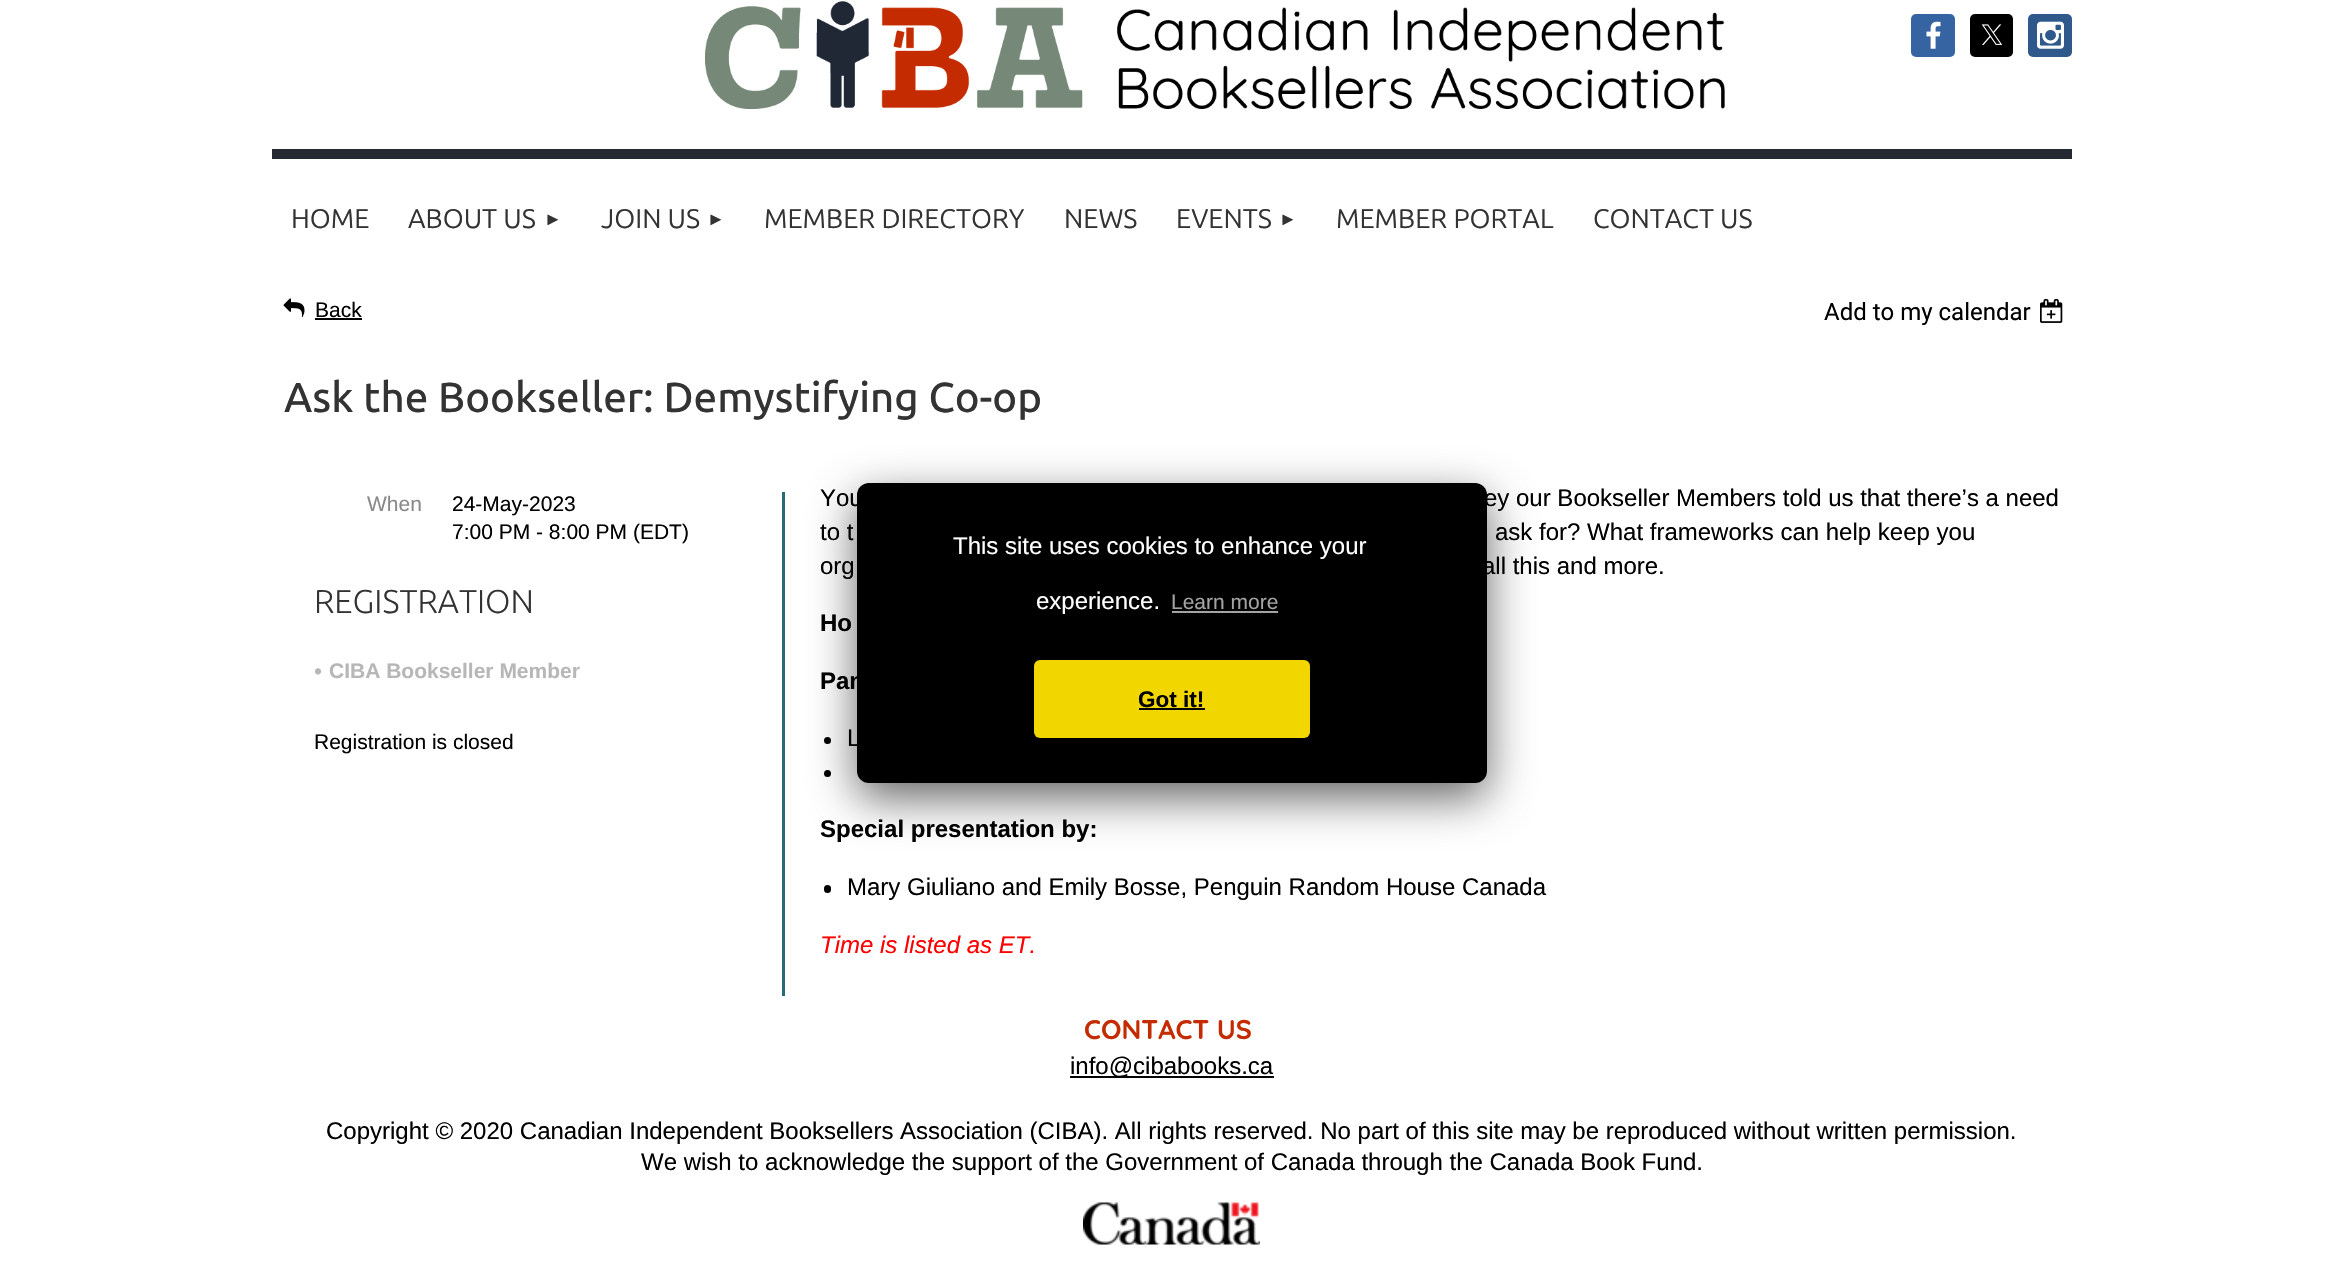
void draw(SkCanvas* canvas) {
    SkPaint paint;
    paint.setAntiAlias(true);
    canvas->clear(0xFFFFFFFF);
    canvas->drawImageRect(SkImages::DeferredFromEncodedData(SkData::MakeFromFileName("img1.png")), SkRect::MakeXYWH(705, 1, 1020, 108), SkSamplingOptions());
    paint.setColor(0xFF3664A2);
    canvas->drawRoundRect(SkRect::MakeXYWH(1911, 14, 44, 43), 5, 5, paint);
    canvas->drawImageRect(SkImages::DeferredFromEncodedData(SkData::MakeFromFileName("img2.png")), SkRect::MakeXYWH(1926, 21, 15, 28), SkSamplingOptions());
    paint.setColor(0xFF000000);
    canvas->drawRoundRect(SkRect::MakeXYWH(1970, 14, 43, 43), 5, 5, paint);
    canvas->drawImageRect(SkImages::DeferredFromEncodedData(SkData::MakeFromFileName("img3.png")), SkRect::MakeXYWH(1981, 24, 22, 21), SkSamplingOptions());
    paint.setColor(0xFF2F598A);
    canvas->drawRoundRect(SkRect::MakeXYWH(2028, 14, 44, 43), 5, 5, paint);
    canvas->drawImageRect(SkImages::DeferredFromEncodedData(SkData::MakeFromFileName("img4.png")), SkRect::MakeXYWH(2037, 21, 27, 28), SkSamplingOptions());
    paint.setColor(0xFF252932);
    canvas->drawRect(SkRect::MakeXYWH(272, 149, 1800, 10), paint);
    SkFont font1(fontMgr->matchFamilyStyle("Ubuntu", SkFontStyle::Normal()), 27);
    font1.setSubpixel(true);
    paint.setColor(0xFF333333);
    canvas->drawString("HOME", 291, 228, font1, paint);
    canvas->drawString("ABOUT US", 408, 228, font1, paint);
    SkFont font2(fontMgr->matchFamilyStyle("Liberation Sans", SkFontStyle::Normal()), 18);
    font2.setSubpixel(true);
    canvas->drawString("►", 544, 225, font2, paint);
    canvas->drawString("JOIN US", 601, 228, font1, paint);
    canvas->drawString("►", 707, 225, font2, paint);
    canvas->drawString("MEMBER DIRECTORY", 764, 228, font1, paint);
    canvas->drawString("NEWS", 1064, 228, font1, paint);
    canvas->drawString("EVENTS", 1176, 228, font1, paint);
    canvas->drawString("►", 1279, 225, font2, paint);
    canvas->drawString("MEMBER PORTAL", 1336, 228, font1, paint);
    canvas->drawString("CONTACT US", 1593, 228, font1, paint);
    canvas->drawImageRect(SkImages::DeferredFromEncodedData(SkData::MakeFromFileName("img5.png")), SkRect::MakeXYWH(283, 298, 22, 20), SkSamplingOptions());
    SkFont font3(fontMgr->matchFamilyStyle("Liberation Sans", SkFontStyle::Normal()), 21);
    font3.setSubpixel(true);
    paint.setColor(0xFF000000);
    canvas->drawString("Back", 315, 317, font3, paint);
    canvas->drawRect(SkRect::MakeXYWH(315, 318, 47, 2), paint);
    SkFont font4(fontMgr->matchFamilyStyle("Roboto", SkFontStyle::Normal()), 24);
    font4.setSubpixel(true);
    canvas->drawString("Add to my calendar", 1824, 320, font4, paint);
    canvas->drawImageRect(SkImages::DeferredFromEncodedData(SkData::MakeFromFileName("img6.png")), SkRect::MakeXYWH(2040, 298, 23, 25), SkSamplingOptions());
    SkFont font5(fontMgr->matchFamilyStyle("Ubuntu", SkFontStyle(500, SkFontStyle::kNormal_Width, SkFontStyle::kUpright_Slant)), 42);
    font5.setSubpixel(true);
    paint.setColor(0xFF333333);
    canvas->drawString("Ask the Bookseller: Demystifying Co-op", 284, 412, font5, paint);
    paint.setColor(0xFF266C78);
    canvas->drawRect(SkRect::MakeXYWH(782, 492, 3, 504), paint);
    paint.setColor(0xFF898989);
    canvas->drawString("When", 367, 511, font3, paint);
    paint.setColor(0xFF000000);
    canvas->drawString("24-May-2023", 452, 511, font3, paint);
    canvas->drawString("7:00 PM - 8:00 PM (EDT)", 452, 539, font3, paint);
    SkFont font6(fontMgr->matchFamilyStyle("Ubuntu", SkFontStyle(300, SkFontStyle::kNormal_Width, SkFontStyle::kUpright_Slant)), 33);
    font6.setSubpixel(true);
    paint.setColor(0xFF333333);
    canvas->drawString("REGISTRATION", 314, 613, font6, paint);
    SkFont font7(fontMgr->matchFamilyStyle("Liberation Sans", SkFontStyle::Normal()), 23);
    font7.setSubpixel(true);
    paint.setColor(0xFFB7B7B7);
    canvas->drawString("•", 314, 679, font7, paint);
    SkFont font8(fontMgr->matchFamilyStyle("Liberation Sans", SkFontStyle::Bold()), 21);
    font8.setSubpixel(true);
    canvas->drawString("CIBA Bookseller Member", 329, 678, font8, paint);
    paint.setColor(0xFF000000);
    canvas->drawString("Registration is closed", 314, 749, font3, paint);
    SkFont font9(fontMgr->matchFamilyStyle("Liberation Sans", SkFontStyle::Normal()), 24);
    font9.setSubpixel(true);
    canvas->drawString("You", 820, 506, font9, paint);
    canvas->drawString("ey our Bookseller Members told us that there’s a need", 1484, 506, font9, paint);
    canvas->drawString("to t", 820, 540, font9, paint);
    canvas->drawString("ask for? What frameworks can help keep you", 1495, 540, font9, paint);
    canvas->drawString("org", 820, 574, font9, paint);
    canvas->drawString("all this and more.", 1482, 574, font9, paint);
    SkFont font10(fontMgr->matchFamilyStyle("Liberation Sans", SkFontStyle::Bold()), 24);
    font10.setSubpixel(true);
    canvas->drawString("Ho", 820, 631, font10, paint);
    canvas->drawString("Pan", 820, 689, font10, paint);
    canvas->drawCircle(827.5f, 740.5f, 3.5f, paint);
    canvas->drawString("L", 847, 746, font9, paint);
    canvas->drawCircle(827.5f, 773.5f, 3.5f, paint);
    canvas->drawString("Special presentation by:", 820, 837, font10, paint);
    canvas->drawRoundRect(SkRect::MakeXYWH(824, 885, 7, 8), 3.5f, 3.5f, paint);
    canvas->drawString("Mary Giuliano and Emily Bosse, Penguin Random House Canada", 847, 895, font9, paint);
    SkFont font11(fontMgr->matchFamilyStyle("Liberation Sans", SkFontStyle::Italic()), 24);
    font11.setSubpixel(true);
    paint.setColor(0xFFFF0000);
    canvas->drawString("Time is listed as ET.", 820, 953, font11, paint);
    SkFont font12(fontMgr->matchFamilyStyle("Quicksand", SkFontStyle(300, SkFontStyle::kNormal_Width, SkFontStyle::kUpright_Slant)), 27);
    font12.setSubpixel(true);
    paint.setColor(0xFFC42C00);
    canvas->drawString("CONTACT US", 1084, 1039, font12, paint);
    paint.setColor(0xFF000000);
    canvas->drawRect(SkRect::MakeXYWH(1070, 1076, 204, 2), paint);
    canvas->drawString("info@cibabooks.ca", 1070, 1074, font9, paint);
    canvas->drawString("Copyright © 2020 Canadian Independent Booksellers Association (CIBA). All rights reserved. No part of this site may be reproduced without written permission.", 326, 1139, font9, paint);
    canvas->drawString("We wish to acknowledge the support of the Government of Canada through the Canada Book Fund.", 641, 1170, font9, paint);
    canvas->drawImageRect(SkImages::DeferredFromEncodedData(SkData::MakeFromFileName("img7.png")), SkRect::MakeXYWH(1083, 1202, 177, 43), SkSamplingOptions());
    paint.setColor(0x99000000);
    paint.setMaskFilter(SkMaskFilter::MakeBlur(kNormal_SkBlurStyle, 22.5f));
    canvas->drawRoundRect(SkRect::MakeXYWH(857, 498, 630, 300), 12, 12, paint);
    paint.setMaskFilter(nullptr);
    paint.setColor(0xFF000000);
    canvas->drawRoundRect(SkRect::MakeXYWH(857, 483, 630, 300), 12, 12, paint);
    paint.setColor(0xFFFFFFFF);
    canvas->drawString("This site uses cookies to enhance your", 953, 554, font9, paint);
    canvas->drawString("experience.", 1036, 609, font9, paint);
    paint.setColor(0xFFA3A3A3);
    canvas->drawString("Learn more", 1171, 609, font3, paint);
    canvas->drawRect(SkRect::MakeXYWH(1172, 611, 106, 2), paint);
    paint.setColor(0xFFF1D600);
    canvas->drawRoundRect(SkRect::MakeXYWH(1034, 660, 276, 78), 6, 6, paint);
    SkFont font13(fontMgr->matchFamilyStyle("Liberation Sans", SkFontStyle::Bold()), 22.5f);
    font13.setSubpixel(true);
    paint.setColor(0xFF000000);
    canvas->drawString("Got it!", 1138, 707, font13, paint);
    canvas->drawRect(SkRect::MakeXYWH(1139, 708, 66, 2), paint);
}
